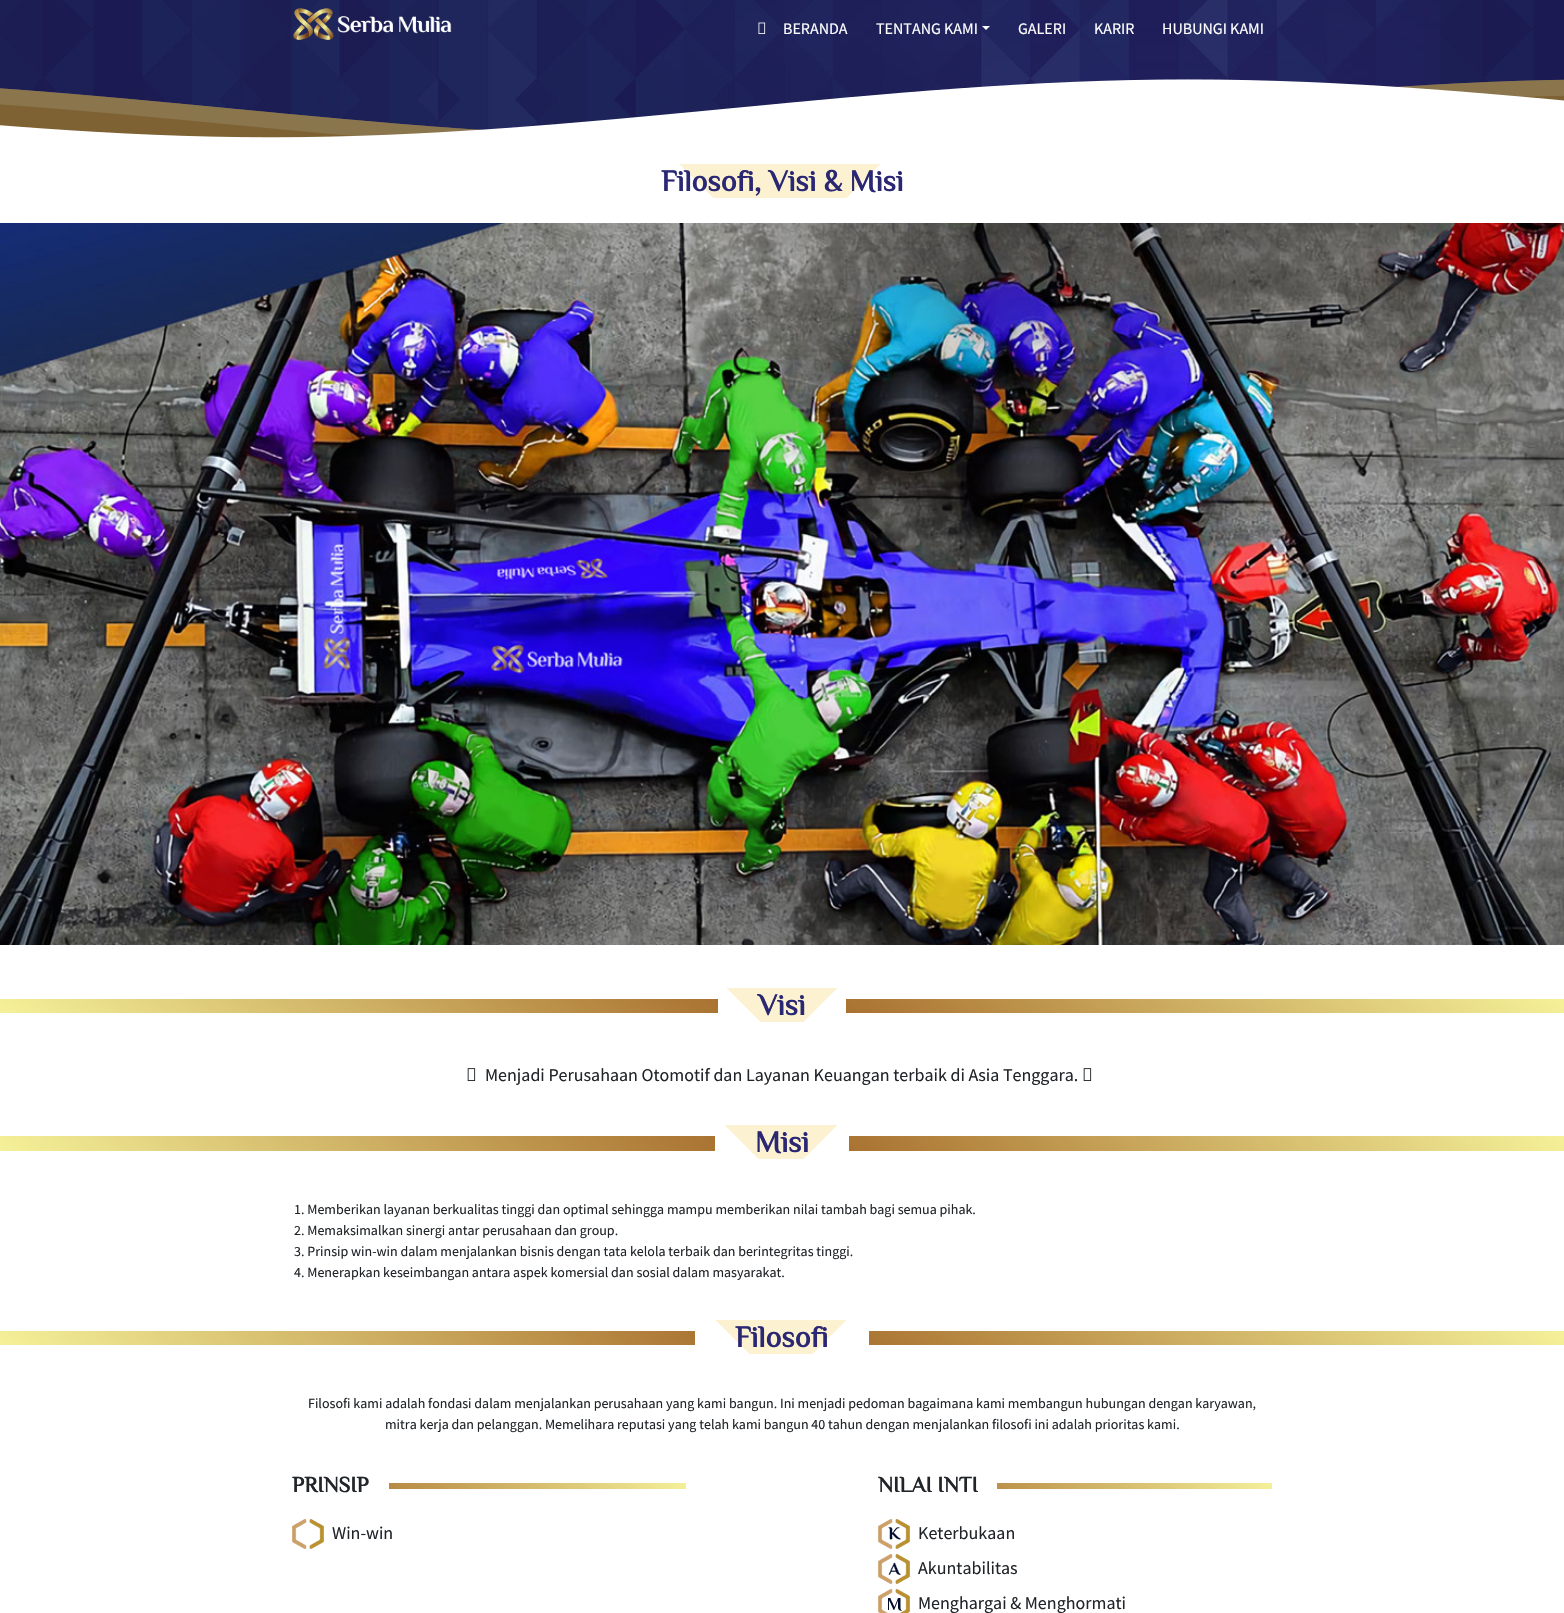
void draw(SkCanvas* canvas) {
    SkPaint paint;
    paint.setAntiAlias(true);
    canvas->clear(0xFFFFFFFF);
    canvas->drawImageRect(SkImages::DeferredFromEncodedData(SkData::MakeFromFileName("img1.png")), SkRect::MakeXYWH(0, 0, 1564, 138), SkSamplingOptions());
    canvas->drawImageRect(SkImages::DeferredFromEncodedData(SkData::MakeFromFileName("img2.png")), SkRect::MakeXYWH(293, 8, 159, 32), SkSamplingOptions());
    canvas->drawImageRect(SkImages::DeferredFromEncodedData(SkData::MakeFromFileName("img3.png")), SkRect::MakeXYWH(758, 22, 8, 12), SkSamplingOptions());
    SkFont font1(fontMgr->matchFamilyStyle("Source Sans Pro", SkFontStyle::Normal()), 16);
    font1.setSubpixel(true);
    paint.setColor(0xFFFFFFFF);
    canvas->drawString("BERANDA", 783, 34, font1, paint);
    canvas->drawString("TENTANG KAMI", 876, 34, font1, paint);
    canvas->drawPath(SkPathBuilder().moveTo(982, 26).lineTo(990, 26).lineTo(986, 30).close().detach(), paint);
    canvas->drawString("GALERI", 1018, 34, font1, paint);
    canvas->drawString("KARIR", 1094, 34, font1, paint);
    canvas->drawString("HUBUNGI KAMI", 1162, 34, font1, paint);
    canvas->drawImageRect(SkImages::DeferredFromEncodedData(SkData::MakeFromFileName("img4.png")), SkRect::MakeXYWH(0, 79, 1564, 84), SkSamplingOptions());
    {
        const SkColor colors[] = {0xFFFFFFFF, 0xFFFFFFFF, 0xFFFCF1D0};
        const float stops[] = {0, 0.26f, 0.26f};
        const SkPoint ends[] = {{693, 270}, {871, 92}};
        paint.setShader(SkGradientShader::MakeLinear(ends, colors, stops, 3, SkTileMode::kClamp));
        paint.setAlpha(255);
    }
    canvas->drawRect(SkRect::MakeXYWH(680, 164, 200, 34), paint);
    {
        const SkColor colors[] = {0xFFFFFFFF, 0xFFFFFFFF, 0x00FFFFFF};
        const float stops[] = {0, 0.27f, 0.27f};
        const SkPoint ends[] = {{871, 270}, {693, 92}};
        paint.setShader(SkGradientShader::MakeLinear(ends, colors, stops, 3, SkTileMode::kClamp));
        paint.setAlpha(255);
    }
    canvas->drawRect(SkRect::MakeXYWH(847, 165, 33, 33), paint);
    SkFont font2(fontMgr->matchFamilyStyle("Philosopher", SkFontStyle::Bold()), 30);
    font2.setSubpixel(true);
    paint.setShader(nullptr);
    paint.setColor(0xFF2B2873);
    canvas->drawString("Filosofi, Visi & Misi", 661, 191, font2, paint);
    canvas->drawImageRect(SkImages::DeferredFromEncodedData(SkData::MakeFromFileName("img5.png")), SkRect::MakeXYWH(0, 223, 1564, 722), SkSamplingOptions());
    {
        const SkColor colors[] = {0xFFF5F199, 0xFFA36828, 0xFFF5F199};
        const float stops[] = {0, 0.5f, 1};
        const SkPoint ends[] = {{388, 1401}, {1177, 612}};
        paint.setShader(SkGradientShader::MakeLinear(ends, colors, stops, 3, SkTileMode::kClamp));
        paint.setAlpha(255);
    }
    canvas->drawRect(SkRect::MakeXYWH(0, 999, 1564, 14), paint);
    {
        const SkColor colors[] = {0xFFFFFFFF, 0xFFFFFFFF, 0xFFFCF1D0};
        const float stops[] = {0, 0.26f, 0.26f};
        const SkPoint ends[] = {{742, 1046}, {823, 965}};
        paint.setShader(SkGradientShader::MakeLinear(ends, colors, stops, 3, SkTileMode::kClamp));
        paint.setAlpha(255);
    }
    canvas->drawRect(SkRect::MakeXYWH(718, 988, 119, 34), paint);
    paint.setShader(nullptr);
    paint.setColor(0xFF2B2873);
    canvas->drawString("Visi", 758, 1015, font2, paint);
    {
        const SkColor colors[] = {0xFFFFFFFF, 0xFFFFFFFF, 0x00FFFFFF};
        const float stops[] = {0, 0.27f, 0.27f};
        const SkPoint ends[] = {{823, 1046}, {742, 965}};
        paint.setShader(SkGradientShader::MakeLinear(ends, colors, stops, 3, SkTileMode::kClamp));
        paint.setAlpha(255);
    }
    canvas->drawRect(SkRect::MakeXYWH(804, 989, 42, 33), paint);
    canvas->drawImageRect(SkImages::DeferredFromEncodedData(SkData::MakeFromFileName("img6.png")), SkRect::MakeXYWH(467, 1068, 9, 13), SkSamplingOptions());
    SkFont font3(fontMgr->matchFamilyStyle("Source Sans Pro", SkFontStyle::Normal()), 18);
    font3.setSubpixel(true);
    paint.setShader(nullptr);
    paint.setColor(0xFF212529);
    canvas->drawString("Menjadi Perusahaan Otomotif dan Layanan Keuangan terbaik di Asia Tenggara.", 485, 1081, font3, paint);
    canvas->drawImageRect(SkImages::DeferredFromEncodedData(SkData::MakeFromFileName("img6.png")), SkRect::MakeXYWH(1083, 1068, 9, 13), SkSamplingOptions());
    {
        const SkColor colors[] = {0xFFF5F199, 0xFFA36828, 0xFFF5F199};
        const float stops[] = {0, 0.5f, 1};
        const SkPoint ends[] = {{387, 1538}, {1177, 749}};
        paint.setShader(SkGradientShader::MakeLinear(ends, colors, stops, 3, SkTileMode::kClamp));
        paint.setAlpha(255);
    }
    canvas->drawRect(SkRect::MakeXYWH(0, 1136, 1564, 15), paint);
    {
        const SkColor colors[] = {0xFFFFFFFF, 0xFFFFFFFF, 0xFFFCF1D0};
        const float stops[] = {0, 0.26f, 0.26f};
        const SkPoint ends[] = {{740, 1184}, {824, 1100}};
        paint.setShader(SkGradientShader::MakeLinear(ends, colors, stops, 3, SkTileMode::kClamp));
        paint.setAlpha(255);
    }
    canvas->drawRect(SkRect::MakeXYWH(715, 1125, 122, 34), paint);
    {
        const SkColor colors[] = {0xFFFFFFFF, 0xFFFFFFFF, 0x00FFFFFF};
        const float stops[] = {0, 0.27f, 0.27f};
        const SkPoint ends[] = {{824, 1184}, {740, 1100}};
        paint.setShader(SkGradientShader::MakeLinear(ends, colors, stops, 3, SkTileMode::kClamp));
        paint.setAlpha(255);
    }
    canvas->drawRect(SkRect::MakeXYWH(804, 1126, 45, 33), paint);
    paint.setShader(nullptr);
    paint.setColor(0xFF2B2873);
    canvas->drawString("Misi", 755, 1152, font2, paint);
    SkFont font4(fontMgr->matchFamilyStyle("Source Sans Pro", SkFontStyle::Normal()), 14);
    font4.setSubpixel(true);
    paint.setColor(0xFF212529);
    canvas->drawString("1. Memberikan layanan berkualitas tinggi dan optimal sehingga mampu memberikan nilai tambah bagi semua pihak.", 294, 1214, font4, paint);
    canvas->drawString("2. Memaksimalkan sinergi antar perusahaan dan group.", 294, 1235, font4, paint);
    canvas->drawString("3. Prinsip win-win dalam menjalankan bisnis dengan tata kelola terbaik dan berintegritas tinggi.", 294, 1256, font4, paint);
    canvas->drawString("4. Menerapkan keseimbangan antara aspek komersial dan sosial dalam masyarakat.", 294, 1277, font4, paint);
    {
        const SkColor colors[] = {0xFFF5F199, 0xFFA36828, 0xFFF5F199};
        const float stops[] = {0, 0.5f, 1};
        const SkPoint ends[] = {{388, 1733}, {1177, 944}};
        paint.setShader(SkGradientShader::MakeLinear(ends, colors, stops, 3, SkTileMode::kClamp));
        paint.setAlpha(255);
    }
    canvas->drawRect(SkRect::MakeXYWH(0, 1331, 1564, 14), paint);
    {
        const SkColor colors[] = {0xFFFFFFFF, 0xFFFFFFFF, 0xFFFCF1D0};
        const float stops[] = {0, 0.26f, 0.26f};
        const SkPoint ends[] = {{730, 1389}, {834, 1285}};
        paint.setShader(SkGradientShader::MakeLinear(ends, colors, stops, 3, SkTileMode::kClamp));
        paint.setAlpha(255);
    }
    canvas->drawRect(SkRect::MakeXYWH(695, 1320, 151, 34), paint);
    {
        const SkColor colors[] = {0xFFFFFFFF, 0xFFFFFFFF, 0x00FFFFFF};
        const float stops[] = {0, 0.27f, 0.27f};
        const SkPoint ends[] = {{834, 1389}, {730, 1285}};
        paint.setShader(SkGradientShader::MakeLinear(ends, colors, stops, 3, SkTileMode::kClamp));
        paint.setAlpha(255);
    }
    canvas->drawRect(SkRect::MakeXYWH(813, 1321, 56, 33), paint);
    paint.setShader(nullptr);
    paint.setColor(0xFF2B2873);
    canvas->drawString("Filosofi", 735, 1347, font2, paint);
    paint.setColor(0xFF212529);
    canvas->drawString("Filosofi kami adalah fondasi dalam menjalankan perusahaan yang kami bangun. Ini menjadi pedoman bagaimana kami membangun hubungan dengan karyawan,", 308, 1408, font4, paint);
    canvas->drawString("mitra kerja dan pelanggan. Memelihara reputasi yang telah kami bangun 40 tahun dengan menjalankan filosofi ini adalah prioritas kami.", 385, 1429, font4, paint);
    {
        const SkColor colors[] = {0xFFA36828, 0xFFF5F199};
        const float stops[] = {0, 1};
        const SkPoint ends[] = {{389, 1586}, {589, 1386}};
        paint.setShader(SkGradientShader::MakeLinear(ends, colors, stops, 2, SkTileMode::kClamp));
        paint.setAlpha(255);
    }
    canvas->drawRect(SkRect::MakeXYWH(389, 1483, 297, 6), paint);
    SkFont font5(fontMgr->matchFamilyStyle("Philosopher", SkFontStyle::Bold()), 22);
    font5.setSubpixel(true);
    paint.setShader(nullptr);
    paint.setColor(0xFF212529);
    canvas->drawString("PRINSIP", 292, 1492, font5, paint);
    canvas->drawImageRect(SkImages::DeferredFromEncodedData(SkData::MakeFromFileName("img7.png")), SkRect::MakeXYWH(292, 1519, 32, 30), SkSamplingOptions());
    canvas->drawString("Win-win", 332, 1539, font3, paint);
    {
        const SkColor colors[] = {0xFFA36828, 0xFFF5F199};
        const float stops[] = {0, 1};
        const SkPoint ends[] = {{975, 1586}, {1175, 1386}};
        paint.setShader(SkGradientShader::MakeLinear(ends, colors, stops, 2, SkTileMode::kClamp));
        paint.setAlpha(255);
    }
    canvas->drawRect(SkRect::MakeXYWH(997, 1483, 275, 6), paint);
    paint.setShader(nullptr);
    paint.setColor(0xFF212529);
    canvas->drawString("NILAI INTI", 878, 1492, font5, paint);
    canvas->drawImageRect(SkImages::DeferredFromEncodedData(SkData::MakeFromFileName("img8.png")), SkRect::MakeXYWH(878, 1519, 32, 30), SkSamplingOptions());
    canvas->drawString("Keterbukaan", 918, 1539, font3, paint);
    canvas->drawImageRect(SkImages::DeferredFromEncodedData(SkData::MakeFromFileName("img9.png")), SkRect::MakeXYWH(878, 1554, 32, 30), SkSamplingOptions());
    canvas->drawString("Akuntabilitas", 918, 1574, font3, paint);
    canvas->drawImageRect(SkImages::DeferredFromEncodedData(SkData::MakeFromFileName("img10.png")), SkRect::MakeXYWH(878, 1589, 32, 24), SkSamplingOptions());
    canvas->drawString("Menghargai & Menghormati", 918, 1609, font3, paint);
}
